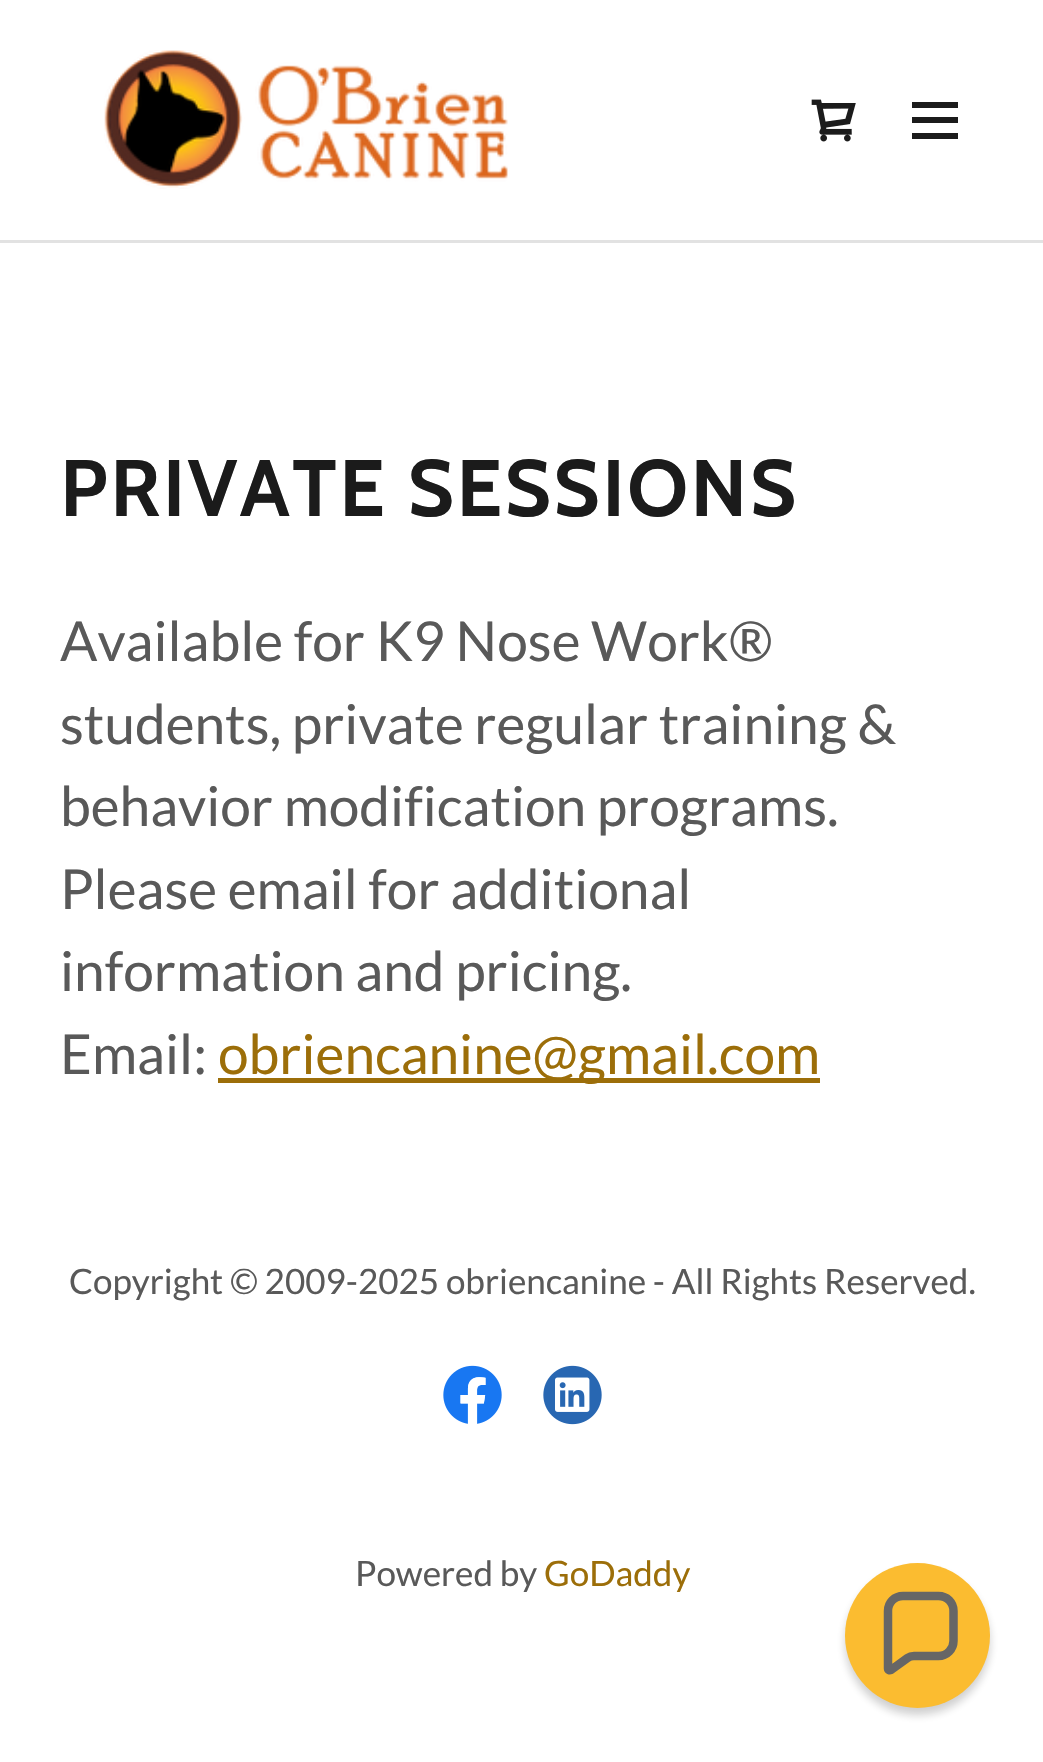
void draw(SkCanvas* canvas) {
    SkPaint paint;
    paint.setAntiAlias(true);
    auto spacedText = [&](const char* s, float x, float y, const SkFont& font, const SkPaint& ink, float letter, float word) {
        std::vector<SkGlyphID> glyphs(font.countText(s, strlen(s), SkTextEncoding::kUTF8));
        std::vector<float> xs(glyphs.size());
        font.textToGlyphs(s, strlen(s), SkTextEncoding::kUTF8, glyphs);
        font.getXPos(glyphs, xs, x);
        float extra = 0;
        for (size_t i = 0; i < glyphs.size(); i++) {
            xs[i] += extra;
            extra += letter + word * (glyphs[i] == font.unicharToGlyph(' '));
        }
        canvas->drawTextBlob(SkTextBlob::MakeFromPosHGlyphs(glyphs, xs, y, font), 0, 0, ink);
    };
    canvas->clear(0xFFFFFFFF);
    canvas->drawImageRect(SkImages::DeferredFromEncodedData(SkData::MakeFromFileName("img1.png")), SkRect::MakeXYWH(104, 50, 404, 139), SkSamplingOptions());
    canvas->drawImageRect(SkImages::DeferredFromEncodedData(SkData::MakeFromFileName("img2.png")), SkRect::MakeXYWH(811, 99, 45, 43), SkSamplingOptions());
    paint.setColor(0xFF1B1B1B);
    canvas->drawRect(SkRect::MakeXYWH(912, 102, 46, 6), paint);
    canvas->drawRect(SkRect::MakeXYWH(912, 117, 46, 6), paint);
    canvas->drawRect(SkRect::MakeXYWH(912, 133, 46, 6), paint);
    paint.setColor(0xFFE2E2E2);
    canvas->drawRect(SkRect::MakeXYWH(0, 240, 1043, 3), paint);
    SkFont font1(fontMgr->matchFamilyStyle("Cabin", SkFontStyle::Bold()), 80);
    font1.setSubpixel(true);
    paint.setColor(0xFF1B1B1B);
    spacedText("PRIVATE SESSIONS", 60, 516, font1, paint, 2.5f, 0);
    SkFont font2(fontMgr->matchFamilyStyle("Lato", SkFontStyle::Normal()), 55);
    font2.setSubpixel(true);
    paint.setColor(0xFF595959);
    canvas->drawString("Available for K9 Nose Work®", 60, 661, font2, paint);
    canvas->drawString("students, private regular training &", 60, 744, font2, paint);
    canvas->drawString("behavior modification programs.", 60, 826, font2, paint);
    canvas->drawString("Please email for additional", 60, 909, font2, paint);
    canvas->drawString("information and pricing.", 60, 991, font2, paint);
    canvas->drawString("Email:", 60, 1074, font2, paint);
    paint.setColor(0xFF9C6E09);
    canvas->drawRect(SkRect::MakeXYWH(218, 1078, 602, 5), paint);
    canvas->drawString("obriencanine@gmail.com", 218, 1074, font2, paint);
    SkFont font3(fontMgr->matchFamilyStyle("Lato", SkFontStyle::Normal()), 35);
    font3.setSubpixel(true);
    paint.setColor(0xFF595959);
    canvas->drawString("Copyright © 2009-2025 obriencanine - All Rights Reserved.", 69, 1294, font3, paint);
    canvas->drawImageRect(SkImages::DeferredFromEncodedData(SkData::MakeFromFileName("img3.png")), SkRect::MakeXYWH(443, 1365, 59, 59), SkSamplingOptions());
    canvas->drawImageRect(SkImages::DeferredFromEncodedData(SkData::MakeFromFileName("img4.png")), SkRect::MakeXYWH(543, 1365, 59, 60), SkSamplingOptions());
    canvas->drawString("Powered by", 355, 1586, font3, paint);
    paint.setColor(0xFF9C6E09);
    canvas->drawString("GoDaddy", 544, 1586, font3, paint);
    paint.setColor(0x330D0D0D);
    paint.setMaskFilter(SkMaskFilter::MakeBlur(kNormal_SkBlurStyle, 4));
    canvas->drawRoundRect(SkRect::MakeXYWH(845, 1570, 145, 145), 72.5f, 72.5f, paint);
    paint.setMaskFilter(nullptr);
    paint.setColor(0xFFFBBC30);
    canvas->drawCircle(917.5f, 1635.5f, 72.5f, paint);
    paint.setStyle(SkPaint::kStroke_Style);
    paint.setStrokeWidth(8.5f);
    paint.setColor(0xFF666666);
    canvas->drawPath(SkPathBuilder().moveTo(938.5f, 1596).lineTo(903, 1596).cubicTo(894.5f, 1596, 888, 1602.5f, 888, 1611).lineTo(888, 1668.5f).cubicTo(888, 1670, 889.5f, 1670.5f, 891, 1670).lineTo(907.5f, 1658).cubicTo(909.5f, 1656.5f, 911.5f, 1656, 914, 1656).lineTo(938.5f, 1656).cubicTo(947, 1656, 953.5f, 1649, 953.5f, 1641).lineTo(953.5f, 1611).cubicTo(953.5f, 1602.5f, 947, 1596, 938.5f, 1596).close().detach(), paint);
}
